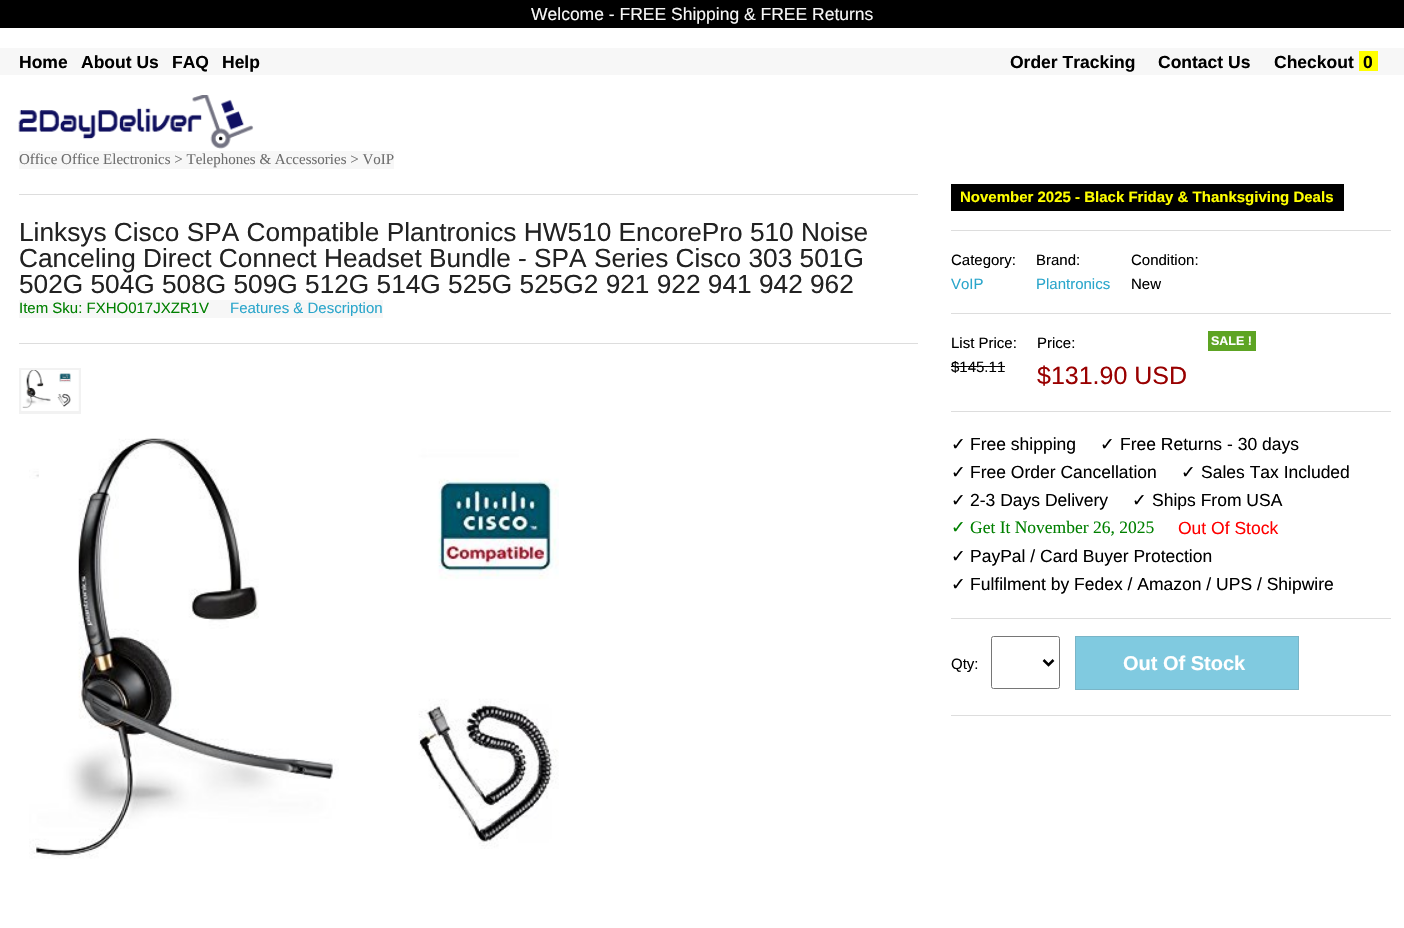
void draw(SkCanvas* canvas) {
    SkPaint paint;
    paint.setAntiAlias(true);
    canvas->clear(0xFFFFFFFF);
    paint.setColor(0xFF000000);
    canvas->drawRect(SkRect::MakeXYWH(0, 0, 1404, 28), paint);
    SkFont font1(fontMgr->matchFamilyStyle("Liberation Sans", SkFontStyle::Normal()), 17.5f);
    font1.setSubpixel(true);
    paint.setColor(0xFFF7F7F7);
    canvas->drawString("Welcome - FREE Shipping & FREE Returns", 531, 20, font1, paint);
    canvas->drawRect(SkRect::MakeXYWH(0, 48, 1404, 27), paint);
    SkFont font2(fontMgr->matchFamilyStyle("Liberation Sans", SkFontStyle::Bold()), 17.5f);
    font2.setSubpixel(true);
    paint.setColor(0xFF000000);
    canvas->drawString("Home", 19, 68, font2, paint);
    canvas->drawString("About Us", 81, 68, font2, paint);
    canvas->drawString("FAQ", 172, 68, font2, paint);
    canvas->drawString("Help", 222, 68, font2, paint);
    canvas->drawString("Order Tracking", 1010, 68, font2, paint);
    canvas->drawString("Contact Us", 1158, 68, font2, paint);
    canvas->drawString("Checkout", 1274, 68, font2, paint);
    paint.setColor(0xFFFFFF00);
    canvas->drawRect(SkRect::MakeXYWH(1359, 51, 19, 20), paint);
    paint.setColor(0xFF000000);
    canvas->drawString("0", 1363, 68, font2, paint);
    canvas->drawImageRect(SkImages::DeferredFromEncodedData(SkData::MakeFromFileName("img1.png")), SkRect::MakeXYWH(18, 95, 236, 54), SkSamplingOptions());
    paint.setColor(0xFFF7F7F7);
    canvas->drawRect(SkRect::MakeXYWH(19, 151, 375, 18), paint);
    SkFont font3(fontMgr->matchFamilyStyle("Liberation Serif", SkFontStyle::Normal()), 15);
    font3.setSubpixel(true);
    paint.setColor(0xFF6E6E6E);
    canvas->drawString("Office Office Electronics > Telephones & Accessories > VoIP", 19, 164, font3, paint);
    paint.setColor(0xFFDDDDDD);
    canvas->drawRect(SkRect::MakeXYWH(19, 194, 899, 1), paint);
    SkFont font4(fontMgr->matchFamilyStyle("Liberation Sans", SkFontStyle::Normal()), 26.25f);
    font4.setSubpixel(true);
    paint.setColor(0xFF222222);
    canvas->drawString("Linksys Cisco SPA Compatible Plantronics HW510 EncorePro 510 Noise", 19, 241, font4, paint);
    canvas->drawString("Canceling Direct Connect Headset Bundle - SPA Series Cisco 303 501G", 19, 267, font4, paint);
    canvas->drawString("502G 504G 508G 509G 512G 514G 525G 525G2 921 922 941 942 962", 19, 293, font4, paint);
    paint.setColor(0xFFF7F7F7);
    canvas->drawRect(SkRect::MakeXYWH(19, 300, 364, 18), paint);
    SkFont font5(fontMgr->matchFamilyStyle("Liberation Sans", SkFontStyle::Normal()), 15);
    font5.setSubpixel(true);
    paint.setColor(0xFF008000);
    canvas->drawString("Item Sku: FXHO017JXZR1V", 19, 313, font5, paint);
    paint.setColor(0xFF2BA6CB);
    canvas->drawString("Features & Description", 230, 313, font5, paint);
    paint.setColor(0xFFDDDDDD);
    canvas->drawRect(SkRect::MakeXYWH(19, 343, 899, 1), paint);
    paint.setStyle(SkPaint::kStroke_Style);
    paint.setStrokeWidth(3);
    paint.setColor(0xFFF2F2F2);
    canvas->drawRect(SkRect::MakeXYWH(20.5f, 369.5f, 59, 43), paint);
    canvas->drawImageRect(SkImages::DeferredFromEncodedData(SkData::MakeFromFileName("img2.png")), SkRect::MakeXYWH(21, 370, 58, 41), SkSamplingOptions());
    canvas->drawImageRect(SkImages::DeferredFromEncodedData(SkData::MakeFromFileName("img3.png")), SkRect::MakeXYWH(29, 438, 530, 421), SkSamplingOptions());
    paint.setStyle(SkPaint::kFill_Style);
    paint.setColor(0xFF000000);
    canvas->drawRect(SkRect::MakeXYWH(951, 184, 393, 27), paint);
    SkFont font6(fontMgr->matchFamilyStyle("Liberation Sans", SkFontStyle::Bold()), 15);
    font6.setSubpixel(true);
    paint.setColor(0xFFFFFF00);
    canvas->drawString("November 2025 - Black Friday & Thanksgiving Deals", 960, 202, font6, paint);
    paint.setColor(0xFFDDDDDD);
    canvas->drawRect(SkRect::MakeXYWH(951, 230, 440, 1), paint);
    paint.setColor(0xFF000000);
    canvas->drawString("Category:", 951, 265, font5, paint);
    paint.setColor(0xFF2BA6CB);
    canvas->drawString("VoIP", 951, 289, font5, paint);
    paint.setColor(0xFF000000);
    canvas->drawString("Brand:", 1036, 265, font5, paint);
    paint.setColor(0xFF2BA6CB);
    canvas->drawString("Plantronics", 1036, 289, font5, paint);
    paint.setColor(0xFF000000);
    canvas->drawString("Condition:", 1131, 265, font5, paint);
    canvas->drawString("New", 1131, 289, font5, paint);
    paint.setColor(0xFFDDDDDD);
    canvas->drawRect(SkRect::MakeXYWH(951, 313, 440, 1), paint);
    paint.setColor(0xFF000000);
    canvas->drawString("List Price:", 951, 348, font5, paint);
    canvas->drawString("$145.11", 951, 372, font5, paint);
    canvas->drawRect(SkRect::MakeXYWH(951, 366, 54, 1), paint);
    canvas->drawString("Price:", 1037, 348, font5, paint);
    SkFont font7(fontMgr->matchFamilyStyle("Liberation Sans", SkFontStyle::Normal()), 25);
    font7.setSubpixel(true);
    paint.setColor(0xFF990000);
    canvas->drawString("$131.90 USD", 1037, 384, font7, paint);
    paint.setColor(0xFF5DA423);
    canvas->drawRect(SkRect::MakeXYWH(1208, 331, 48, 20), paint);
    SkFont font8(fontMgr->matchFamilyStyle("Liberation Sans", SkFontStyle::Bold()), 12.5f);
    font8.setSubpixel(true);
    paint.setColor(0xFFFFFFFF);
    canvas->drawString("SALE !", 1211, 345, font8, paint);
    paint.setColor(0xFFDDDDDD);
    canvas->drawRect(SkRect::MakeXYWH(951, 411, 440, 1), paint);
    SkFont font9(fontMgr->matchFamilyStyle("DejaVu Sans", SkFontStyle::Normal()), 17.5f);
    font9.setSubpixel(true);
    paint.setColor(0xFF000000);
    canvas->drawString("✓", 951, 450, font9, paint);
    canvas->drawString("Free shipping", 970, 450, font1, paint);
    canvas->drawString("✓", 1100, 450, font9, paint);
    canvas->drawString("Free Returns - 30 days", 1120, 450, font1, paint);
    canvas->drawString("✓", 951, 478, font9, paint);
    canvas->drawString("Free Order Cancellation", 970, 478, font1, paint);
    canvas->drawString("✓", 1181, 478, font9, paint);
    canvas->drawString("Sales Tax Included", 1201, 478, font1, paint);
    canvas->drawString("✓", 951, 506, font9, paint);
    canvas->drawString("2-3 Days Delivery", 970, 506, font1, paint);
    canvas->drawString("✓", 1132, 506, font9, paint);
    canvas->drawString("Ships From USA", 1152, 506, font1, paint);
    paint.setColor(0xFF008000);
    canvas->drawString("✓", 951, 533, font9, paint);
    SkFont font10(fontMgr->matchFamilyStyle("Liberation Serif", SkFontStyle::Normal()), 17.5f);
    font10.setSubpixel(true);
    canvas->drawString("Get It November 26, 2025", 970, 533, font10, paint);
    paint.setColor(0xFFFF0000);
    canvas->drawString("Out Of Stock", 1178, 534, font1, paint);
    paint.setColor(0xFF000000);
    canvas->drawString("✓", 951, 562, font9, paint);
    canvas->drawString("PayPal / Card Buyer Protection", 970, 562, font1, paint);
    canvas->drawString("✓", 951, 590, font9, paint);
    canvas->drawString("Fulfilment by Fedex / Amazon / UPS / Shipwire", 970, 590, font1, paint);
    paint.setColor(0xFFDDDDDD);
    canvas->drawRect(SkRect::MakeXYWH(951, 618, 440, 1), paint);
    paint.setColor(0xFF000000);
    canvas->drawString("Qty:", 951, 669, font5, paint);
    paint.setStyle(SkPaint::kStroke_Style);
    paint.setStrokeWidth(1);
    paint.setColor(0xFF767676);
    canvas->drawRoundRect(SkRect::MakeXYWH(991.5f, 636.5f, 68, 52), 2, 2, paint);
    paint.setStrokeWidth(2.5f);
    paint.setColor(0xFF000000);
    canvas->drawPath(SkPathBuilder().moveTo(1043.5f, 660).lineTo(1048.5f, 665).lineTo(1053.5f, 660).detach(), paint);
    paint.setStyle(SkPaint::kFill_Style);
    paint.setColor(0xFF80CAE0);
    canvas->drawRect(SkRect::MakeXYWH(1075.5f, 636.5f, 223, 53), paint);
    paint.setStyle(SkPaint::kStroke_Style);
    paint.setStrokeWidth(1);
    paint.setColor(0xFF7AB5C7);
    canvas->drawRect(SkRect::MakeXYWH(1075.5f, 636.5f, 223, 53), paint);
    SkFont font11(fontMgr->matchFamilyStyle("Liberation Sans", SkFontStyle::Bold()), 20);
    font11.setSubpixel(true);
    paint.setStyle(SkPaint::kFill_Style);
    paint.setColor(0xFFFFFFFF);
    canvas->drawString("Out Of Stock", 1123, 670, font11, paint);
    paint.setColor(0xFFDDDDDD);
    canvas->drawRect(SkRect::MakeXYWH(951, 715, 440, 1), paint);
}
